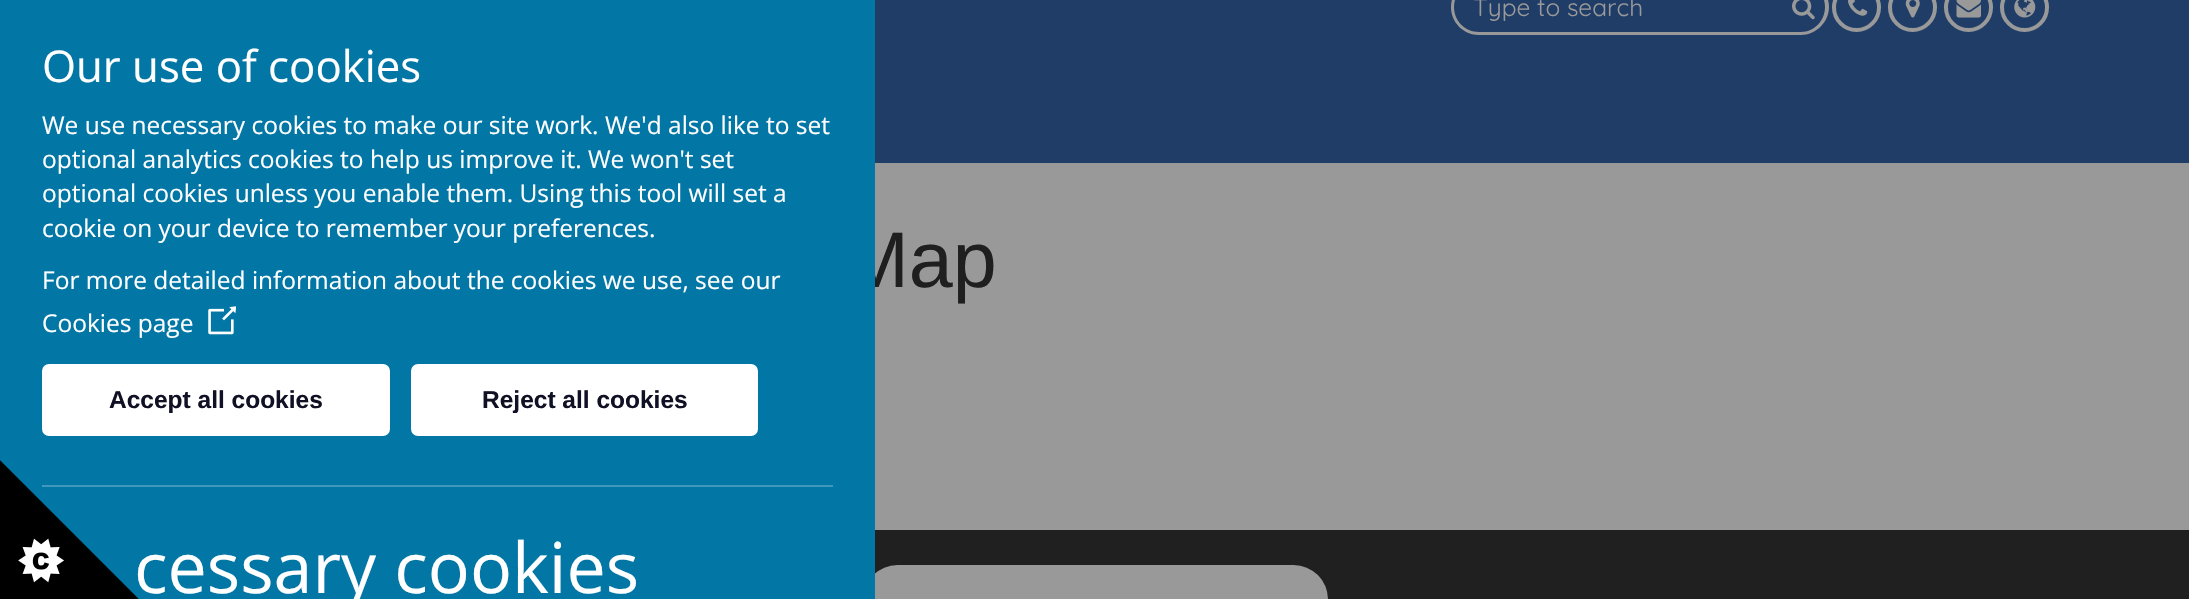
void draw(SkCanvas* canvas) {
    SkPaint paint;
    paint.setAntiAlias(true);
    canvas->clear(0xFF999999);
    paint.setColor(0xFF1F3D67);
    canvas->drawRect(SkRect::MakeXYWH(875, 0, 1314, 163), paint);
    paint.setColor(0xFF999999);
    canvas->drawPath(SkPathBuilder(SkPathFillType::kEvenOdd).moveTo(1479, -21).lineTo(1782, -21).lineTo(1782, 35).lineTo(1479, 35).cubicTo(1463, 35, 1451, 22, 1451, 7).cubicTo(1451, -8, 1463, -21, 1479, -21).close().moveTo(1479, -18).lineTo(1782, -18).lineTo(1782, 32).lineTo(1479, 32).cubicTo(1465, 32, 1454, 21, 1454, 7).cubicTo(1454, -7, 1465, -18, 1479, -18).close().detach(), paint);
    SkFont font1(fontMgr->matchFamilyStyle("Quicksand", SkFontStyle::Normal()), 24.5f);
    font1.setSubpixel(true);
    canvas->drawString("Type to search", 1473, 16, font1, paint);
    canvas->drawPath(SkPathBuilder(SkPathFillType::kEvenOdd).moveTo(1780, -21).lineTo(1801, -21).cubicTo(1816, -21, 1829, -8, 1829, 7).cubicTo(1829, 22, 1816, 35, 1801, 35).lineTo(1780, 35).close().moveTo(1780, -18).lineTo(1801, -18).cubicTo(1814, -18, 1825, -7, 1825, 7).cubicTo(1825, 21, 1814, 32, 1801, 32).lineTo(1780, 32).close().detach(), paint);
    canvas->drawImageRect(SkImages::DeferredFromEncodedData(SkData::MakeFromFileName("img1.png")), SkRect::MakeXYWH(1792, 0, 23, 20), SkSamplingOptions());
    paint.setStyle(SkPaint::kStroke_Style);
    paint.setStrokeWidth(4);
    canvas->drawCircle(1856.5f, 7.5f, 22.5f, paint);
    canvas->drawImageRect(SkImages::DeferredFromEncodedData(SkData::MakeFromFileName("img2.png")), SkRect::MakeXYWH(1848, 0, 20, 16), SkSamplingOptions());
    canvas->drawCircle(1912.5f, 7.5f, 22.5f, paint);
    canvas->drawImageRect(SkImages::DeferredFromEncodedData(SkData::MakeFromFileName("img3.png")), SkRect::MakeXYWH(1905, 0, 15, 18), SkSamplingOptions());
    canvas->drawCircle(1968.5f, 7.5f, 22.5f, paint);
    canvas->drawImageRect(SkImages::DeferredFromEncodedData(SkData::MakeFromFileName("img4.png")), SkRect::MakeXYWH(1956, 0, 25, 18), SkSamplingOptions());
    canvas->drawCircle(2024.5f, 7.5f, 22.5f, paint);
    canvas->drawImageRect(SkImages::DeferredFromEncodedData(SkData::MakeFromFileName("img5.png")), SkRect::MakeXYWH(2014, 0, 22, 18), SkSamplingOptions());
    paint.setStyle(SkPaint::kFill_Style);
    paint.setColor(0xFF202020);
    canvas->drawRect(SkRect::MakeXYWH(875, 530, 1314, 69), paint);
    paint.setColor(0xFF999999);
    canvas->drawRoundRect(SkRect::MakeXYWH(863, 565, 465, 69), 34.5f, 34.5f, paint);
    SkFont font2(fontMgr->matchFamilyStyle("Liberation Sans", SkFontStyle::Normal()), 79);
    font2.setSubpixel(true);
    paint.setColor(0xFF1F1F1F);
    canvas->drawString("Map", 843, 287, font2, paint);
    paint.setColor(0xFF0276A5);
    canvas->drawRect(SkRect::MakeXYWH(0, 0, 875, 599), paint);
    SkFont font3(fontMgr->matchFamilyStyle("Open Sans", SkFontStyle::Normal()), 43.75f);
    font3.setSubpixel(true);
    paint.setColor(0xFFFFFFFF);
    canvas->drawString("Our use of cookies", 42, 82, font3, paint);
    SkFont font4(fontMgr->matchFamilyStyle("Open Sans", SkFontStyle::Normal()), 24.5f);
    font4.setSubpixel(true);
    canvas->drawString("We use necessary cookies to make our site work. We'd also like to set", 42, 134, font4, paint);
    canvas->drawString("optional analytics cookies to help us improve it. We won't set", 42, 168, font4, paint);
    canvas->drawString("optional cookies unless you enable them. Using this tool will set a", 42, 202, font4, paint);
    canvas->drawString("cookie on your device to remember your preferences.", 42, 237, font4, paint);
    canvas->drawString("For more detailed information about the cookies we use, see our", 42, 289, font4, paint);
    canvas->drawString("Cookies page", 42, 332, font4, paint);
    canvas->drawImageRect(SkImages::DeferredFromEncodedData(SkData::MakeFromFileName("img6.png")), SkRect::MakeXYWH(208, 306, 28, 29), SkSamplingOptions());
    canvas->drawRoundRect(SkRect::MakeXYWH(44, 366, 344, 68), 5, 5, paint);
    paint.setStyle(SkPaint::kStroke_Style);
    canvas->drawRoundRect(SkRect::MakeXYWH(44, 366, 344, 68), 5, 5, paint);
    SkFont font5(fontMgr->matchFamilyStyle("Liberation Sans", SkFontStyle::Bold()), 24.5f);
    font5.setSubpixel(true);
    paint.setStyle(SkPaint::kFill_Style);
    paint.setColor(0xFF111125);
    canvas->drawString("Accept all cookies", 109, 408, font5, paint);
    paint.setColor(0xFFFFFFFF);
    canvas->drawRoundRect(SkRect::MakeXYWH(413, 366, 343, 68), 5, 5, paint);
    paint.setStyle(SkPaint::kStroke_Style);
    canvas->drawRoundRect(SkRect::MakeXYWH(413, 366, 343, 68), 5, 5, paint);
    paint.setStyle(SkPaint::kFill_Style);
    paint.setColor(0xFF111125);
    canvas->drawString("Reject all cookies", 482, 408, font5, paint);
    paint.setColor(0xFF4198BC);
    canvas->drawRect(SkRect::MakeXYWH(42, 485, 791, 2), paint);
    SkFont font6(fontMgr->matchFamilyStyle("Open Sans", SkFontStyle::Normal()), 70);
    font6.setSubpixel(true);
    paint.setColor(0xFFFFFFFF);
    canvas->drawString("cessary cookies", 134, 593, font6, paint);
    canvas->drawImageRect(SkImages::DeferredFromEncodedData(SkData::MakeFromFileName("img7.png")), SkRect::MakeXYWH(0, 460, 139, 139), SkSamplingOptions());
}
